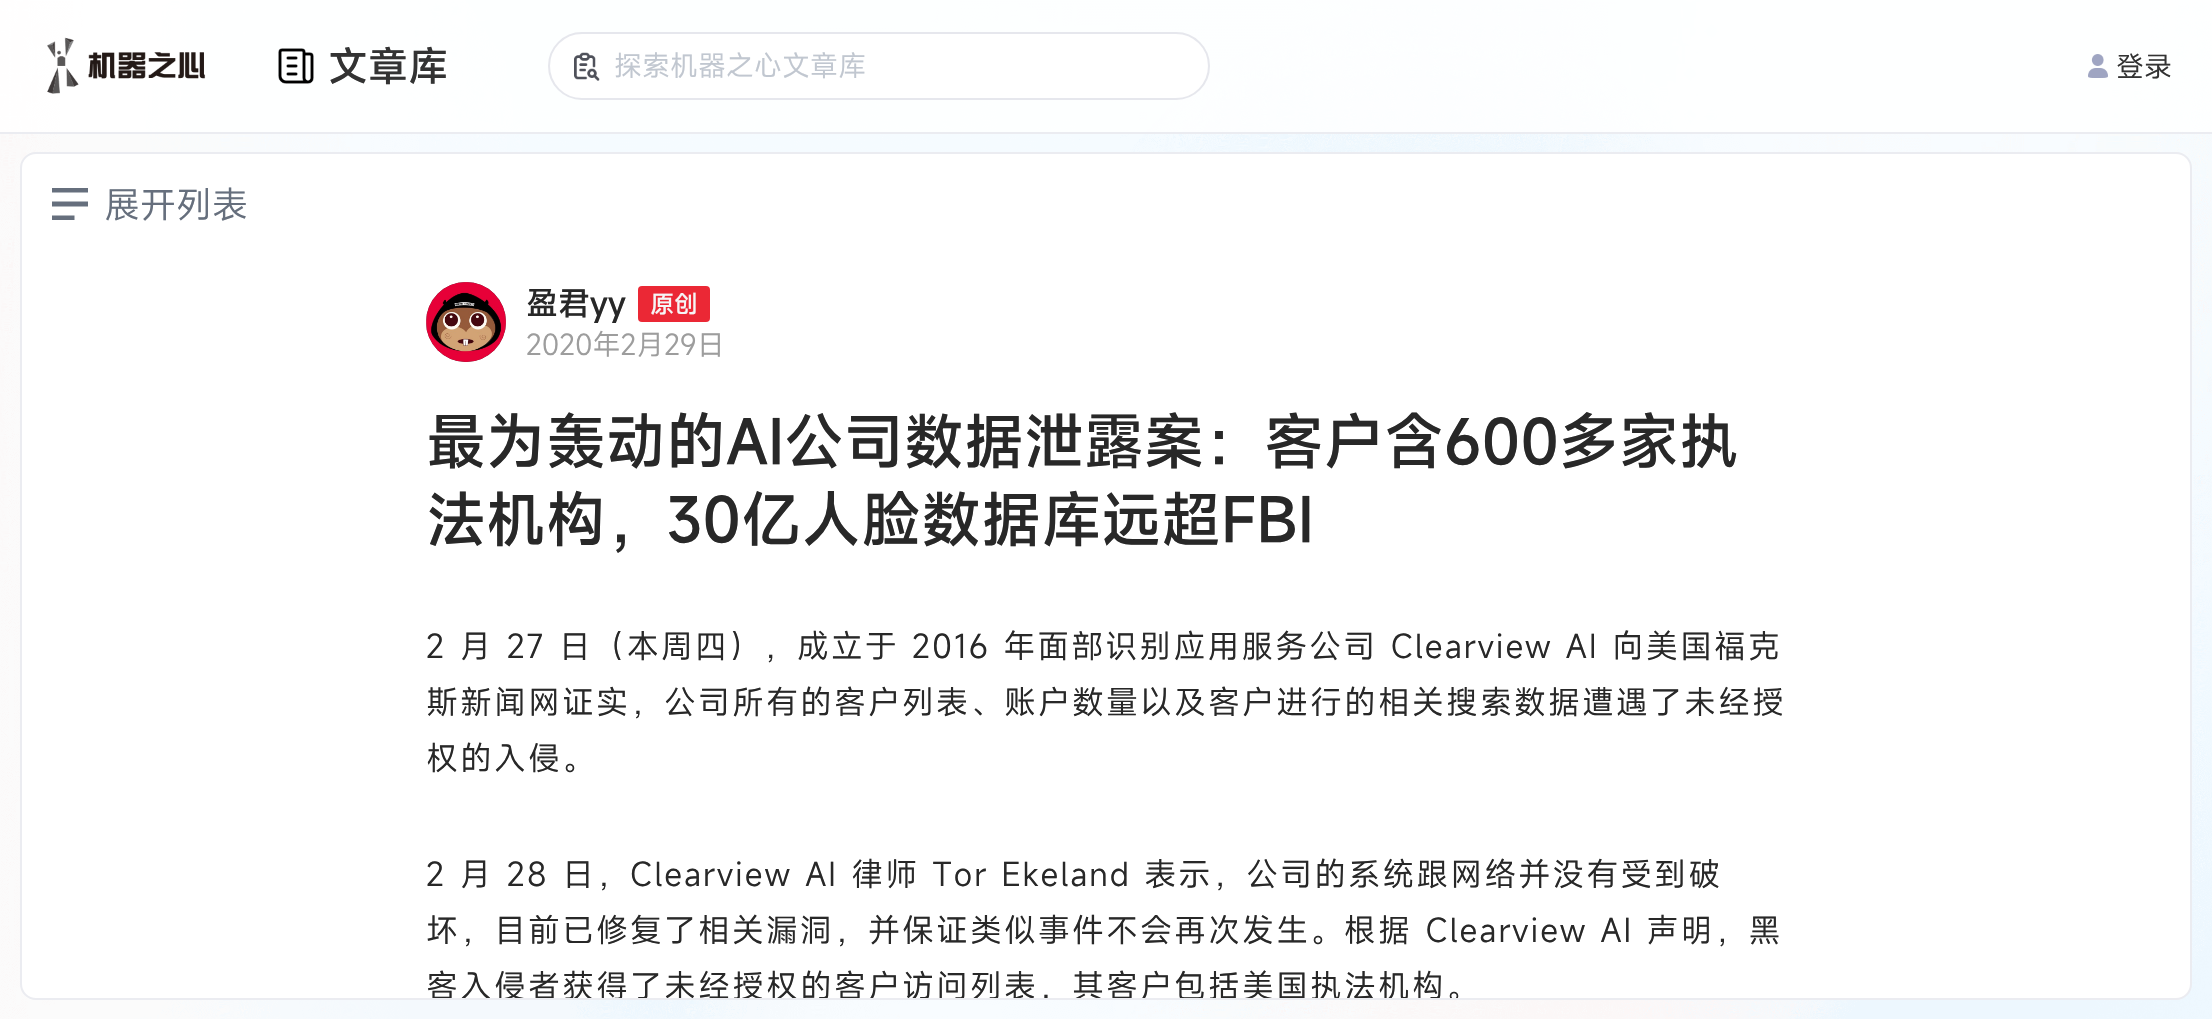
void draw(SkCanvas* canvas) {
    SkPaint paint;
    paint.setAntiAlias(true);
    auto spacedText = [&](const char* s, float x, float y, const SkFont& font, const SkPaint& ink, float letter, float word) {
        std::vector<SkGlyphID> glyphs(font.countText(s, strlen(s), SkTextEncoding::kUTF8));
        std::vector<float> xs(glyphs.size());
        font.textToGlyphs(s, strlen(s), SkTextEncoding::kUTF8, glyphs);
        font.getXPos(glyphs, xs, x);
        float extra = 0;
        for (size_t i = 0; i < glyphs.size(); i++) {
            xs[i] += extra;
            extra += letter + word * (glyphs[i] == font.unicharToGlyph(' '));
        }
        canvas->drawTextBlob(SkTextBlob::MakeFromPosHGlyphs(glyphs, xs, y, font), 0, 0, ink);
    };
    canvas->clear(0xFFFFFFFF);
    canvas->drawImageRect(SkImages::DeferredFromEncodedData(SkData::MakeFromFileName("img1.png")), SkRect::MakeXYWH(0, 0, 2212, 1019), SkSamplingOptions());
    paint.setColor(0xFFEBECF1);
    canvas->drawRect(SkRect::MakeXYWH(0, 132, 2212, 2), paint);
    paint.setColor(0xCCFFFFFF);
    canvas->drawRect(SkRect::MakeXYWH(0, 0, 2212, 132), paint);
    canvas->drawImageRect(SkImages::DeferredFromEncodedData(SkData::MakeFromFileName("img2.png")), SkRect::MakeXYWH(47, 37, 159, 57), SkSamplingOptions());
    canvas->drawImageRect(SkImages::DeferredFromEncodedData(SkData::MakeFromFileName("img3.png")), SkRect::MakeXYWH(278, 48, 36, 37), SkSamplingOptions());
    SkFont font1(fontMgr->matchFamilyStyle("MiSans", SkFontStyle(500, SkFontStyle::kNormal_Width, SkFontStyle::kUpright_Slant)), 40);
    font1.setSubpixel(true);
    paint.setColor(0xFF333333);
    canvas->drawString("文章库", 328, 81, font1, paint);
    paint.setColor(0xFFFFFFFF);
    canvas->drawRoundRect(SkRect::MakeXYWH(549, 33, 660, 66), 33, 33, paint);
    paint.setStyle(SkPaint::kStroke_Style);
    paint.setStrokeWidth(2);
    paint.setColor(0xFFE6E7ED);
    canvas->drawRoundRect(SkRect::MakeXYWH(549, 33, 660, 66), 33, 33, paint);
    canvas->drawImageRect(SkImages::DeferredFromEncodedData(SkData::MakeFromFileName("img4.png")), SkRect::MakeXYWH(574, 52, 26, 29), SkSamplingOptions());
    SkFont font2(fontMgr->matchFamilyStyle("MiSans", SkFontStyle::Normal()), 28);
    font2.setSubpixel(true);
    paint.setStyle(SkPaint::kFill_Style);
    paint.setColor(0xFFC1C7D0);
    canvas->drawString("探索机器之心文章库", 614, 76, font2, paint);
    canvas->drawImageRect(SkImages::DeferredFromEncodedData(SkData::MakeFromFileName("img5.png")), SkRect::MakeXYWH(2088, 54, 20, 24), SkSamplingOptions());
    paint.setColor(0xFF333333);
    canvas->drawString("登录", 2116, 77, font2, paint);
    paint.setColor(0xFFFFFFFF);
    canvas->drawRoundRect(SkRect::MakeXYWH(21, 153, 2170, 846), 15, 15, paint);
    paint.setStyle(SkPaint::kStroke_Style);
    paint.setColor(0xFFEBECF1);
    canvas->drawRoundRect(SkRect::MakeXYWH(21, 153, 2170, 846), 15, 15, paint);
    paint.setStyle(SkPaint::kFill_Style);
    paint.setColor(0xFF666F7D);
    canvas->drawPath(SkPathBuilder().moveTo(52, 188).lineTo(88, 188).lineTo(88, 192.5f).lineTo(52, 192.5f).close().moveTo(52, 215.5f).lineTo(74.5f, 215.5f).lineTo(74.5f, 220).lineTo(52, 220).close().moveTo(52, 201.5f).lineTo(88, 201.5f).lineTo(88, 206.5f).lineTo(52, 206.5f).close().detach(), paint);
    SkFont font3(fontMgr->matchFamilyStyle("MiSans", SkFontStyle::Normal()), 36);
    font3.setSubpixel(true);
    canvas->drawString("展开列表", 104, 218, font3, paint);
    paint.setColor(0xFF333333);
    canvas->drawCircle(466, 322, 40, paint);
    canvas->drawImageRect(SkImages::DeferredFromEncodedData(SkData::MakeFromFileName("img6.png")), SkRect::MakeXYWH(426, 282, 80, 80), SkSamplingOptions());
    SkFont font4(fontMgr->matchFamilyStyle("MiSans", SkFontStyle(500, SkFontStyle::kNormal_Width, SkFontStyle::kUpright_Slant)), 32);
    font4.setSubpixel(true);
    paint.setColor(0xFF282828);
    canvas->drawString("盈君yy", 526, 315, font4, paint);
    paint.setColor(0xFFEB2835);
    canvas->drawRoundRect(SkRect::MakeXYWH(638, 286, 72, 36), 4, 4, paint);
    SkFont font5(fontMgr->matchFamilyStyle("MiSans", SkFontStyle(500, SkFontStyle::kNormal_Width, SkFontStyle::kUpright_Slant)), 24);
    font5.setSubpixel(true);
    paint.setColor(0xFFF6F6F6);
    canvas->drawString("原创", 650, 313, font5, paint);
    paint.setColor(0xFF9D9D9D);
    canvas->drawString("2020年2月29日", 526, 355, font2, paint);
    SkFont font6(fontMgr->matchFamilyStyle("MiSans", SkFontStyle(500, SkFontStyle::kNormal_Width, SkFontStyle::kUpright_Slant)), 60);
    font6.setSubpixel(true);
    paint.setColor(0xFF282828);
    canvas->drawString("最为轰动的AI公司数据泄露案：客户含600多家执", 426, 464, font6, paint);
    canvas->drawString("法机构，30亿人脸数据库远超FBI", 426, 542, font6, paint);
    SkFont font7(fontMgr->matchFamilyStyle("MiSans", SkFontStyle::Normal()), 32);
    font7.setSubpixel(true);
    spacedText("2 月 27 日（本周四），成立于 2016 年面部识别应用服务公司 Clearview AI 向美国福克", 426, 658, font7, paint, 2, 0);
    spacedText("斯新闻网证实，公司所有的客户列表、账户数量以及客户进行的相关搜索数据遭遇了未经授", 426, 714, font7, paint, 2, 0);
    spacedText("权的入侵。", 426, 770, font7, paint, 2, 0);
    spacedText("2 月 28 日，Clearview AI 律师 Tor Ekeland 表示，公司的系统跟网络并没有受到破", 426, 886, font7, paint, 2, 0);
    spacedText("坏，目前已修复了相关漏洞，并保证类似事件不会再次发生。根据 Clearview AI 声明，黑", 426, 942, font7, paint, 2, 0);
    canvas->save();
    canvas->clipPath(SkPathBuilder().moveTo(36, 154).lineTo(2176, 154).cubicTo(2183.5f, 154, 2190, 160.5f, 2190, 168).lineTo(2190, 984).cubicTo(2190, 991.5f, 2183.5f, 998, 2176, 998).lineTo(36, 998).cubicTo(28.5f, 998, 22, 991.5f, 22, 984).lineTo(22, 168).cubicTo(22, 160.5f, 28.5f, 154, 36, 154).close().detach(), true);
    spacedText("客入侵者获得了未经授权的客户访问列表，其客户包括美国执法机构。", 426, 998, font7, paint, 2, 0);
    canvas->restore();
}
